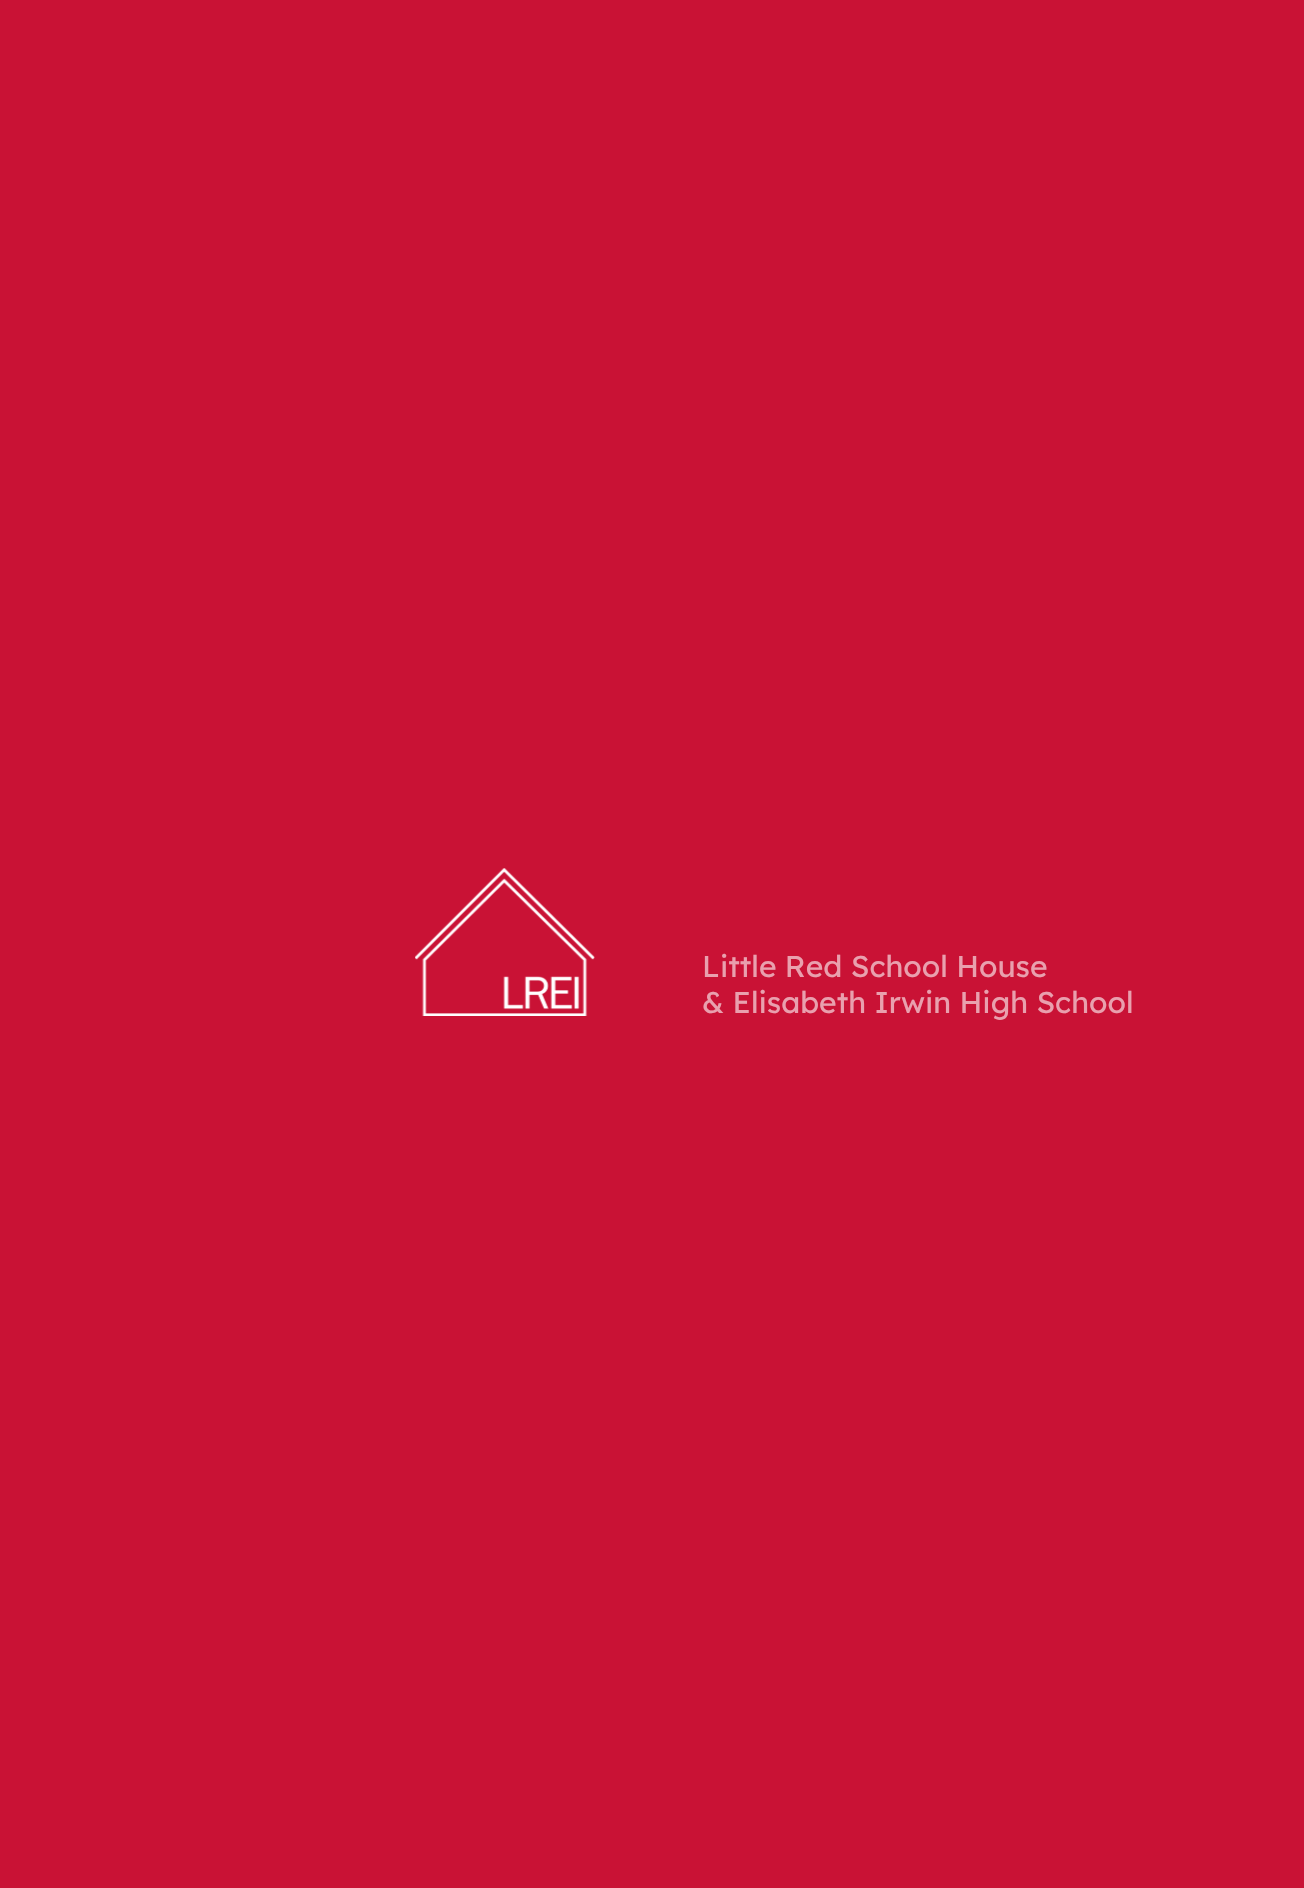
void draw(SkCanvas* canvas) {
    SkPaint paint;
    paint.setAntiAlias(true);
    canvas->clear(0xFFC91235);
    canvas->drawImageRect(SkImages::DeferredFromEncodedData(SkData::MakeFromFileName("img1.png")), SkRect::MakeXYWH(415, 868, 180, 148), SkSamplingOptions());
    SkFont font1(fontMgr->matchFamilyStyle("Lexend Deca", SkFontStyle::Normal()), 30);
    font1.setSubpixel(true);
    paint.setColor(0xFFE9A0AE);
    canvas->drawString("Little Red School House", 702, 977, font1, paint);
    canvas->drawString("& Elisabeth Irwin High School", 702, 1013, font1, paint);
}
